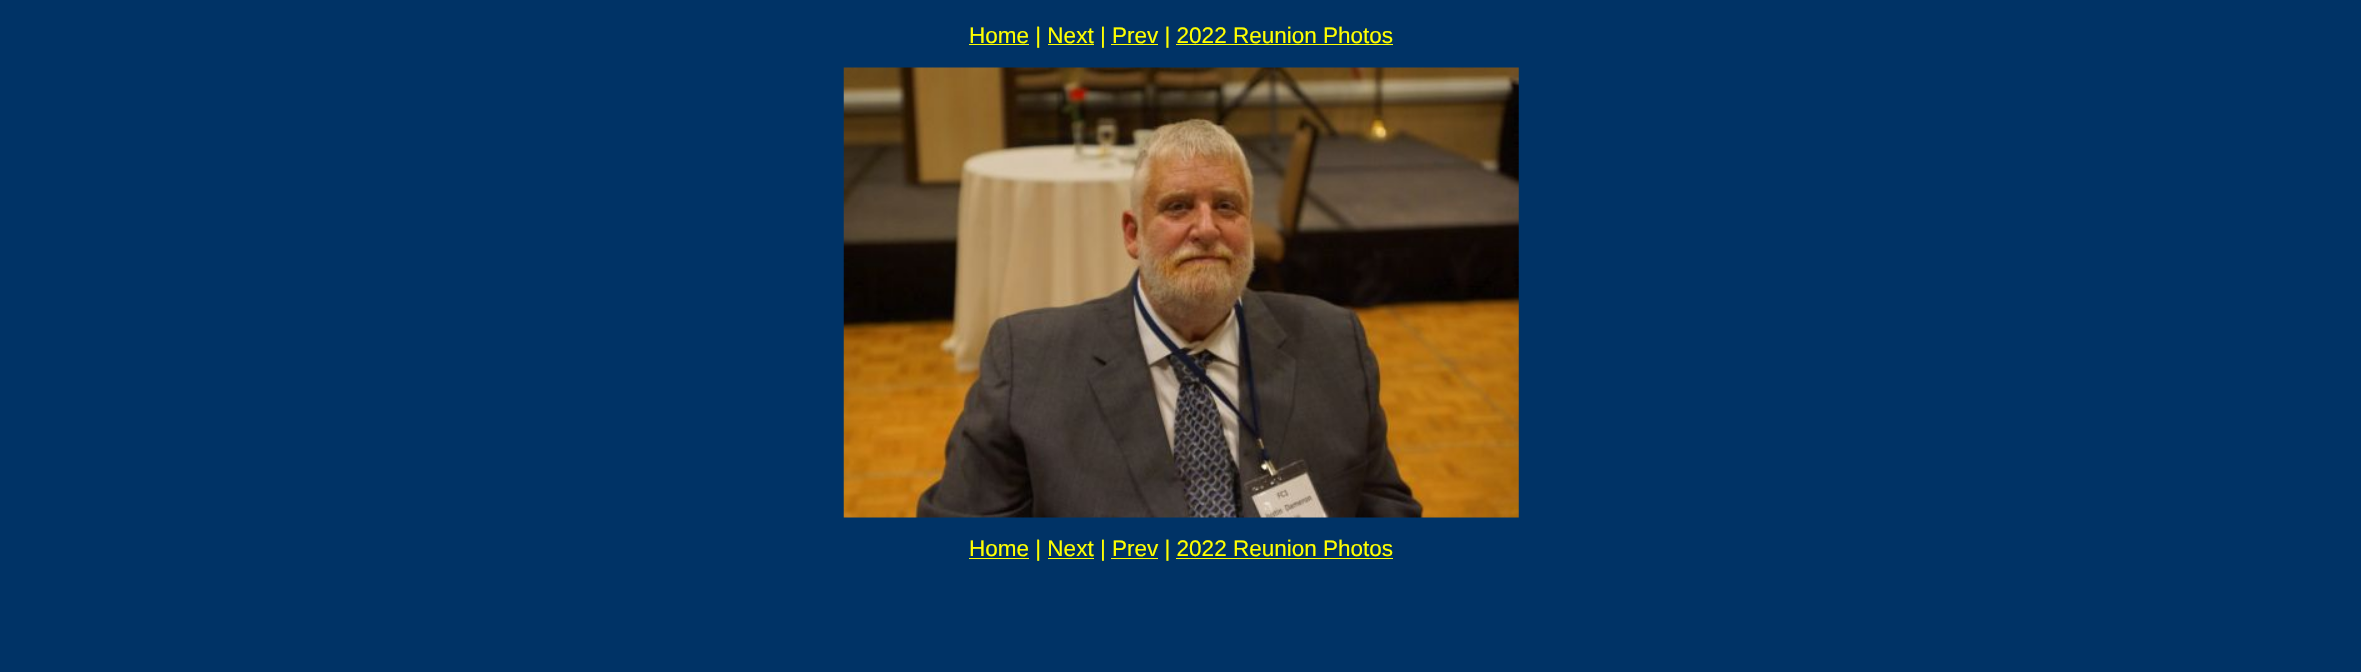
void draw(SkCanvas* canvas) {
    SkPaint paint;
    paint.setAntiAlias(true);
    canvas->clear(0xFF003366);
    paint.setColor(0xFFFFFF00);
    canvas->drawRect(SkRect::MakeXYWH(969, 44, 60, 1), paint);
    SkFont font1(fontMgr->matchFamilyStyle("Liberation Sans", SkFontStyle::Normal()), 22.5f);
    font1.setSubpixel(true);
    canvas->drawString("Home | Next | Prev | 2022 Reunion Photos", 969, 43, font1, paint);
    canvas->drawRect(SkRect::MakeXYWH(1048, 44, 46, 1), paint);
    canvas->drawRect(SkRect::MakeXYWH(1111, 44, 47, 1), paint);
    canvas->drawRect(SkRect::MakeXYWH(1176, 44, 217, 1), paint);
    canvas->drawImageRect(SkImages::DeferredFromEncodedData(SkData::MakeFromFileName("img1.png")), SkRect::MakeXYWH(843, 67, 676, 451), SkSamplingOptions());
    canvas->drawRect(SkRect::MakeXYWH(969, 558, 60, 1), paint);
    canvas->drawString("Home | Next | Prev | 2022 Reunion Photos", 969, 556, font1, paint);
    canvas->drawRect(SkRect::MakeXYWH(1048, 558, 46, 1), paint);
    canvas->drawRect(SkRect::MakeXYWH(1111, 558, 47, 1), paint);
    canvas->drawRect(SkRect::MakeXYWH(1176, 558, 217, 1), paint);
}
